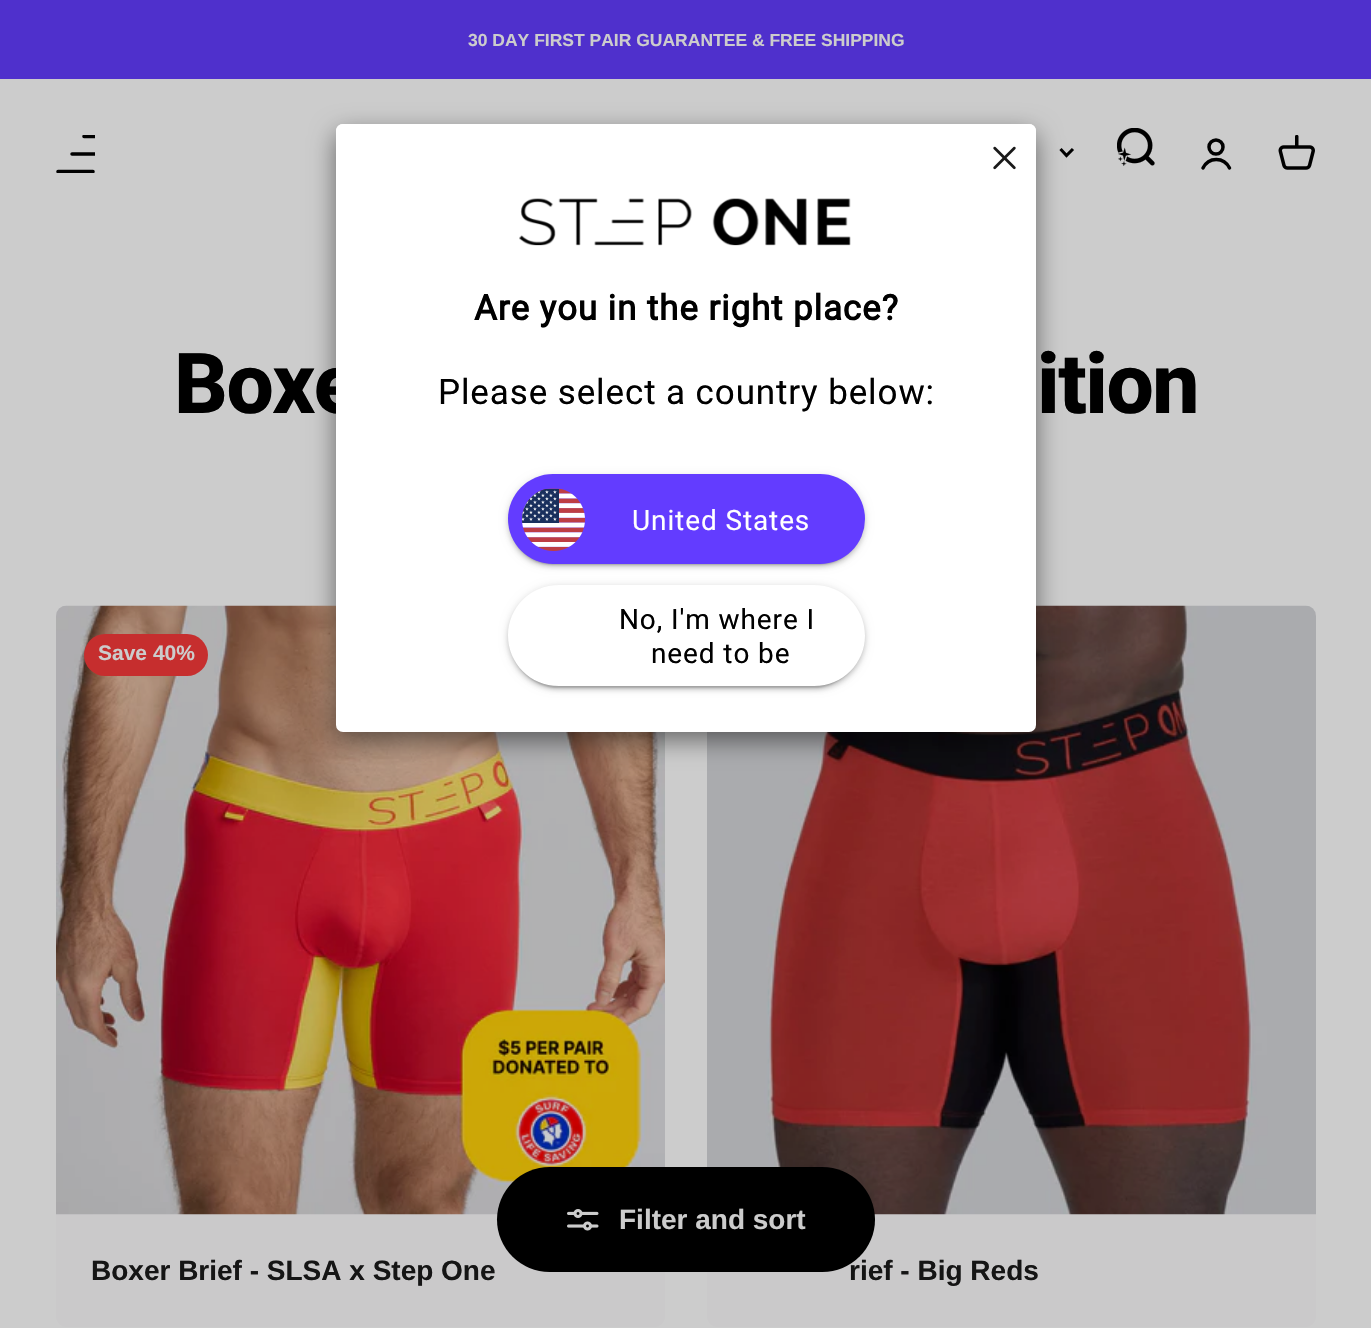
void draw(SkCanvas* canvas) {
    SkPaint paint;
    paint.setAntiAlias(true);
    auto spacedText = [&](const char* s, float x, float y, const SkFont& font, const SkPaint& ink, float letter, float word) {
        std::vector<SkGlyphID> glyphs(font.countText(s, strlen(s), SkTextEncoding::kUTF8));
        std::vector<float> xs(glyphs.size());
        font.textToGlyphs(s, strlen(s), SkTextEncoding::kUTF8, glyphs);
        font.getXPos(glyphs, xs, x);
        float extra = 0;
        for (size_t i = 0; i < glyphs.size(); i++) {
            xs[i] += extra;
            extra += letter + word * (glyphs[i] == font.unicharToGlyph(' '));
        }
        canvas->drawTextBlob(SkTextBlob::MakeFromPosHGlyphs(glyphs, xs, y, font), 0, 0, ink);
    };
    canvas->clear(0xFFCCCCCC);
    paint.setColor(0xFF4F30CC);
    canvas->drawRect(SkRect::MakeXYWH(0, 0, 1371, 79), paint);
    SkFont font1(fontMgr->matchFamilyStyle("Liberation Sans", SkFontStyle::Bold()), 17.5f);
    font1.setSubpixel(true);
    paint.setColor(0xFFCCCCCC);
    canvas->drawString("30 DAY FIRST PAIR GUARANTEE & FREE SHIPPING", 468, 46, font1, paint);
    canvas->save();
    canvas->clipRect(SkRect::MakeXYWH(56, 135, 39, 38));
    paint.setStyle(SkPaint::kStroke_Style);
    paint.setStrokeWidth(3.5f);
    paint.setStrokeCap(SkPaint::kRound_Cap);
    paint.setColor(0xFF000000);
    canvas->drawPath(SkPathBuilder().moveTo(84, 136.5f).lineTo(119, 136.5f).moveTo(72, 154).lineTo(107, 154).moveTo(58, 171.5f).lineTo(93, 171.5f).detach(), paint);
    canvas->restore();
    paint.setStrokeWidth(3.1f);
    paint.setStrokeCap(SkPaint::kButt_Cap);
    canvas->drawPath(SkPathBuilder().moveTo(1060.5f, 149).lineTo(1066.5f, 155.5f).lineTo(1073, 149).detach(), paint);
    canvas->drawImageRect(SkImages::DeferredFromEncodedData(SkData::MakeFromFileName("img1.png")), SkRect::MakeXYWH(1117, 128, 38, 38), SkSamplingOptions());
    paint.setStrokeWidth(3.5f);
    canvas->drawCircle(1216, 147, 7, paint);
    paint.setStrokeCap(SkPaint::kRound_Cap);
    canvas->drawPath(SkPathBuilder().moveTo(1203, 168).cubicTo(1208.5f, 156.5f, 1224, 156.5f, 1229.5f, 168).detach(), paint);
    canvas->drawImageRect(SkImages::DeferredFromEncodedData(SkData::MakeFromFileName("img2.png")), SkRect::MakeXYWH(1278, 135, 37, 35), SkSamplingOptions());
    paint.setStyle(SkPaint::kFill_Style);
    paint.setColor(0xFFCAC9CA);
    canvas->drawRoundRect(SkRect::MakeXYWH(56, 606, 609, 721), 11, 11, paint);
    canvas->drawImageRect(SkImages::DeferredFromEncodedData(SkData::MakeFromFileName("img6.png")), SkRect::MakeXYWH(56, 605, 609, 610), SkSamplingOptions());
    canvas->drawRoundRect(SkRect::MakeXYWH(707, 606, 609, 721), 11, 11, paint);
    canvas->drawImageRect(SkImages::DeferredFromEncodedData(SkData::MakeFromFileName("img7.png")), SkRect::MakeXYWH(707, 605, 609, 610), SkSamplingOptions());
    paint.setColor(0x80000000);
    paint.setMaskFilter(SkMaskFilter::MakeBlur(kNormal_SkBlurStyle, 13));
    canvas->drawRoundRect(SkRect::MakeXYWH(336, 133, 700, 607), 7, 7, paint);
    paint.setMaskFilter(nullptr);
    SkFont font2(fontMgr->matchFamilyStyle("Roboto", SkFontStyle(800, SkFontStyle::kNormal_Width, SkFontStyle::kUpright_Slant)), 84);
    font2.setSubpixel(true);
    paint.setColor(0xFF000000);
    spacedText("Boxe", 174, 413, font2, paint, -1.5f, 0);
    paint.setColor(0xFFFFFFFF);
    canvas->drawRoundRect(SkRect::MakeXYWH(336, 124, 700, 608), 7, 7, paint);
    canvas->drawPath(SkPathBuilder().moveTo(343, 124).lineTo(1029, 124).cubicTo(1033, 124, 1036, 127, 1036, 131).lineTo(1036, 170).lineTo(336, 170).lineTo(336, 131).cubicTo(336, 127, 339, 124, 343, 124).close().detach(), paint);
    canvas->drawImageRect(SkImages::DeferredFromEncodedData(SkData::MakeFromFileName("img3.png")), SkRect::MakeXYWH(993, 146, 23, 24), SkSamplingOptions());
    canvas->drawImageRect(SkImages::DeferredFromEncodedData(SkData::MakeFromFileName("img4.png")), SkRect::MakeXYWH(519, 198, 332, 48), SkSamplingOptions());
    SkFont font3(fontMgr->matchFamilyStyle("Roboto", SkFontStyle::Bold()), 35);
    font3.setSubpixel(true);
    paint.setColor(0xFF000000);
    spacedText("Are you in the right place?", 474, 320, font3, paint, 0.9f, 0);
    SkFont font4(fontMgr->matchFamilyStyle("Roboto", SkFontStyle::Normal()), 35);
    font4.setSubpixel(true);
    spacedText("Please select a country below:", 438, 404, font4, paint, 0.9f, 0);
    paint.setColor(0x1F000000);
    paint.setMaskFilter(SkMaskFilter::MakeBlur(kNormal_SkBlurStyle, 4.5f));
    canvas->drawRoundRect(SkRect::MakeXYWH(508, 476, 357, 89), 44.5f, 44.5f, paint);
    paint.setMaskFilter(nullptr);
    paint.setColor(0x33000000);
    paint.setMaskFilter(SkMaskFilter::MakeBlur(kNormal_SkBlurStyle, 1));
    canvas->drawRoundRect(SkRect::MakeXYWH(511, 483, 350, 82), 41, 41, paint);
    paint.setMaskFilter(nullptr);
    paint.setColor(0x24000000);
    paint.setMaskFilter(SkMaskFilter::MakeBlur(kNormal_SkBlurStyle, 2));
    canvas->drawRoundRect(SkRect::MakeXYWH(508, 478, 357, 89), 44.5f, 44.5f, paint);
    paint.setMaskFilter(nullptr);
    paint.setColor(0xFF633CFF);
    canvas->drawRoundRect(SkRect::MakeXYWH(508, 474, 357, 90), 45, 45, paint);
    canvas->drawImageRect(SkImages::DeferredFromEncodedData(SkData::MakeFromFileName("img5.png")), SkRect::MakeXYWH(522, 488, 63, 63), SkSamplingOptions());
    SkFont font5(fontMgr->matchFamilyStyle("Roboto", SkFontStyle::Normal()), 28);
    font5.setSubpixel(true);
    paint.setColor(0xFFFFFFFF);
    spacedText("United States", 632, 530, font5, paint, 0.9f, 0);
    canvas->save();
    canvas->clipPath(SkPathBuilder(SkPathFillType::kEvenOdd).moveTo(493, 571).lineTo(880, 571).lineTo(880, 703).lineTo(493, 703).close().moveTo(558.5f, 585).lineTo(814.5f, 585).cubicTo(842.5f, 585, 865, 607.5f, 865, 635.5f).cubicTo(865, 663.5f, 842.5f, 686, 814.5f, 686).lineTo(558.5f, 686).cubicTo(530.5f, 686, 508, 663.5f, 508, 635.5f).cubicTo(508, 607.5f, 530.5f, 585, 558.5f, 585).close().detach(), true);
    paint.setColor(0x1F000000);
    paint.setMaskFilter(SkMaskFilter::MakeBlur(kNormal_SkBlurStyle, 4.5f));
    canvas->drawRoundRect(SkRect::MakeXYWH(508, 586, 357, 102), 51, 51, paint);
    paint.setMaskFilter(nullptr);
    canvas->restore();
    canvas->save();
    canvas->clipPath(SkPathBuilder(SkPathFillType::kEvenOdd).moveTo(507, 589).lineTo(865, 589).lineTo(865, 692).lineTo(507, 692).close().moveTo(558.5f, 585).lineTo(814.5f, 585).cubicTo(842.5f, 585, 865, 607.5f, 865, 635.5f).cubicTo(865, 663.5f, 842.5f, 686, 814.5f, 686).lineTo(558.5f, 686).cubicTo(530.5f, 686, 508, 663.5f, 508, 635.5f).cubicTo(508, 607.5f, 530.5f, 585, 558.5f, 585).close().detach(), true);
    paint.setColor(0x33000000);
    paint.setMaskFilter(SkMaskFilter::MakeBlur(kNormal_SkBlurStyle, 1));
    canvas->drawRoundRect(SkRect::MakeXYWH(511, 593, 350, 95), 47.5f, 47.5f, paint);
    paint.setMaskFilter(nullptr);
    canvas->restore();
    canvas->save();
    canvas->clipPath(SkPathBuilder(SkPathFillType::kEvenOdd).moveTo(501, 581).lineTo(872, 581).lineTo(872, 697).lineTo(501, 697).close().moveTo(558.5f, 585).lineTo(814.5f, 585).cubicTo(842.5f, 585, 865, 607.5f, 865, 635.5f).cubicTo(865, 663.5f, 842.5f, 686, 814.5f, 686).lineTo(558.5f, 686).cubicTo(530.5f, 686, 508, 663.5f, 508, 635.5f).cubicTo(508, 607.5f, 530.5f, 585, 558.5f, 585).close().detach(), true);
    paint.setColor(0x24000000);
    paint.setMaskFilter(SkMaskFilter::MakeBlur(kNormal_SkBlurStyle, 2));
    canvas->drawRoundRect(SkRect::MakeXYWH(508, 588, 357, 102), 51, 51, paint);
    paint.setMaskFilter(nullptr);
    canvas->restore();
    paint.setColor(0xFF000000);
    spacedText("No, I'm where I", 619, 629, font5, paint, 0.9f, 0);
    spacedText("need to be", 651, 663, font5, paint, 0.9f, 0);
    spacedText("ition", 1037, 413, font2, paint, -1.5f, 0);
    paint.setColor(0xFFC62E2E);
    canvas->drawRoundRect(SkRect::MakeXYWH(84, 634, 124, 42), 21, 21, paint);
    SkFont font6(fontMgr->matchFamilyStyle("Liberation Sans", SkFontStyle::Bold()), 21);
    font6.setSubpixel(true);
    paint.setColor(0xFFCCCCCC);
    canvas->drawString("Save 40%", 98, 660, font6, paint);
    SkFont font7(fontMgr->matchFamilyStyle("Liberation Sans", SkFontStyle::Bold()), 28);
    font7.setSubpixel(true);
    paint.setColor(0xFF151515);
    canvas->drawString("Boxer Brief - SLSA x Step One", 91, 1280, font7, paint);
    canvas->drawString("rief - Big Reds", 849, 1280, font7, paint);
    paint.setColor(0xFF000000);
    canvas->drawRoundRect(SkRect::MakeXYWH(497, 1167, 378, 105), 52.5f, 52.5f, paint);
    canvas->drawImageRect(SkImages::DeferredFromEncodedData(SkData::MakeFromFileName("img8.png")), SkRect::MakeXYWH(567, 1209, 32, 22), SkSamplingOptions());
    paint.setColor(0xFFCCCCCC);
    canvas->drawString("Filter and sort", 619, 1229, font7, paint);
}
